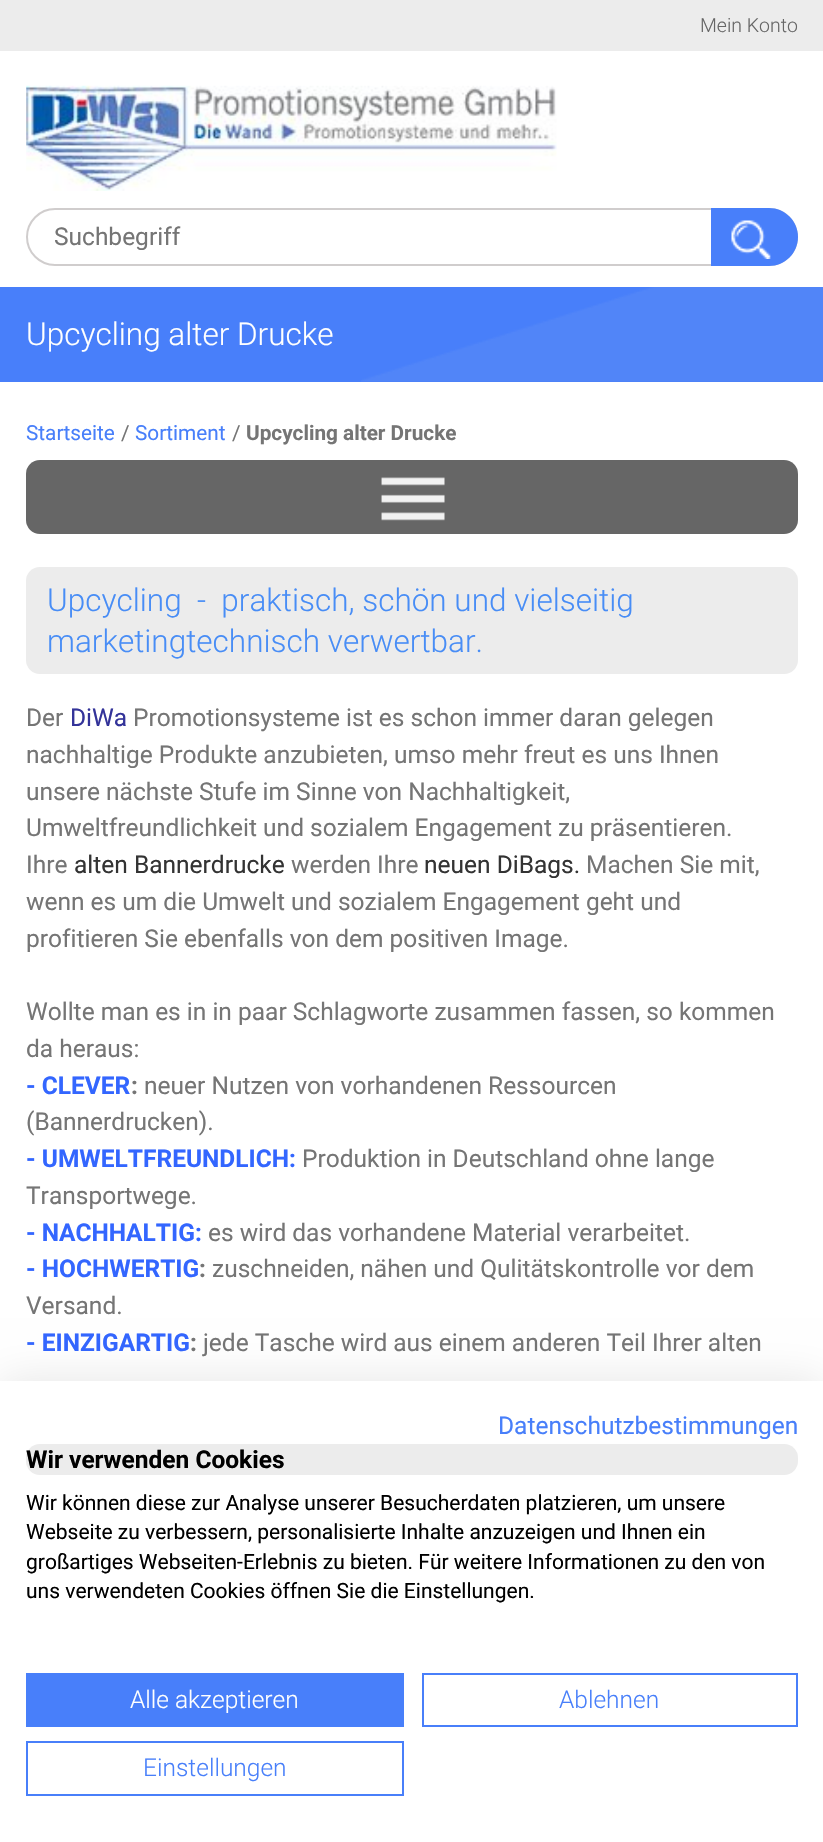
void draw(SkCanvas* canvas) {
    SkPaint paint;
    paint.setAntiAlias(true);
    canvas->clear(0xFFFFFFFF);
    paint.setColor(0xFFECECEC);
    canvas->drawRect(SkRect::MakeXYWH(0, 0, 823, 51), paint);
    SkFont font1(fontMgr->matchFamilyStyle("Roboto", SkFontStyle(300, SkFontStyle::kNormal_Width, SkFontStyle::kUpright_Slant)), 19.5f);
    font1.setSubpixel(true);
    paint.setColor(0xFF666666);
    canvas->drawString("Mein Konto", 700, 32, font1, paint);
    canvas->drawImageRect(SkImages::DeferredFromEncodedData(SkData::MakeFromFileName("img1.png")), SkRect::MakeXYWH(26, 85, 531, 106), SkSamplingOptions());
    paint.setStyle(SkPaint::kStroke_Style);
    paint.setStrokeWidth(2);
    paint.setColor(0xFFD0CDCD);
    canvas->drawRoundRect(SkRect::MakeXYWH(27, 209, 770, 56), 28, 28, paint);
    SkFont font2(fontMgr->matchFamilyStyle("Roboto", SkFontStyle::Normal()), 24.5f);
    font2.setSubpixel(true);
    paint.setStyle(SkPaint::kFill_Style);
    paint.setColor(0xFF757575);
    canvas->drawString("Suchbegriff", 54, 245, font2, paint);
    paint.setColor(0xFF487FFA);
    canvas->drawPath(SkPathBuilder().moveTo(711, 208).lineTo(769, 208).cubicTo(785, 208, 798, 221, 798, 237).cubicTo(798, 253, 785, 266, 769, 266).lineTo(711, 266).close().detach(), paint);
    canvas->drawImageRect(SkImages::DeferredFromEncodedData(SkData::MakeFromFileName("img2.png")), SkRect::MakeXYWH(731, 220, 40, 39), SkSamplingOptions());
    canvas->drawRect(SkRect::MakeXYWH(0, 287, 823, 95), paint);
    canvas->drawImageRect(SkImages::DeferredFromEncodedData(SkData::MakeFromFileName("img3.png")), SkRect::MakeXYWH(361, 287, 462, 95), SkSamplingOptions());
    SkFont font3(fontMgr->matchFamilyStyle("Roboto", SkFontStyle(300, SkFontStyle::kNormal_Width, SkFontStyle::kUpright_Slant)), 31.5f);
    font3.setSubpixel(true);
    paint.setColor(0xFFFFFFFF);
    canvas->drawString("Upcycling alter Drucke", 26, 345, font3, paint);
    SkFont font4(fontMgr->matchFamilyStyle("Roboto", SkFontStyle::Normal()), 20.75f);
    font4.setSubpixel(true);
    paint.setColor(0xFF487FFA);
    canvas->drawString("Startseite", 26, 440, font4, paint);
    paint.setColor(0xFF757575);
    canvas->drawString("/", 121, 440, font4, paint);
    paint.setColor(0xFF487FFA);
    canvas->drawString("Sortiment", 135, 440, font4, paint);
    paint.setColor(0xFF757575);
    canvas->drawString("/", 232, 440, font4, paint);
    SkFont font5(fontMgr->matchFamilyStyle("Roboto", SkFontStyle::Bold()), 20.75f);
    font5.setSubpixel(true);
    canvas->drawString("Upcycling alter Drucke", 246, 440, font5, paint);
    paint.setColor(0xFF666666);
    canvas->drawRoundRect(SkRect::MakeXYWH(26, 460, 772, 74), 14, 14, paint);
    canvas->drawImageRect(SkImages::DeferredFromEncodedData(SkData::MakeFromFileName("img4.png")), SkRect::MakeXYWH(381, 477, 64, 44), SkSamplingOptions());
    paint.setColor(0xFFECECEC);
    canvas->drawRoundRect(SkRect::MakeXYWH(26, 567, 772, 107), 14, 14, paint);
    paint.setColor(0xFF488DF6);
    canvas->drawString("Upcycling  -  praktisch, schön und vielseitig", 47, 611, font3, paint);
    canvas->drawString("marketingtechnisch verwertbar.", 47, 652, font3, paint);
    paint.setColor(0xFF757575);
    canvas->drawString("Der", 26, 726, font2, paint);
    paint.setColor(0xFF333399);
    canvas->drawString("DiWa", 70, 726, font2, paint);
    paint.setColor(0xFF757575);
    canvas->drawString("Promotionsysteme ist es schon immer daran gelegen", 133, 726, font2, paint);
    canvas->drawString("nachhaltige Produkte anzubieten, umso mehr freut es uns Ihnen", 26, 763, font2, paint);
    canvas->drawString("unsere nächste Stufe im Sinne von Nachhaltigkeit,", 26, 800, font2, paint);
    canvas->drawString("Umweltfreundlichkeit und sozialem Engagement zu präsentieren.", 26, 836, font2, paint);
    canvas->drawString("Ihre", 26, 873, font2, paint);
    paint.setColor(0xFF333333);
    canvas->drawString("alten Bannerdrucke", 74, 873, font2, paint);
    paint.setColor(0xFF757575);
    canvas->drawString("werden Ihre", 291, 873, font2, paint);
    paint.setColor(0xFF333333);
    canvas->drawString("neuen DiBags.", 424, 873, font2, paint);
    paint.setColor(0xFF757575);
    canvas->drawString("Machen Sie mit,", 586, 873, font2, paint);
    canvas->drawString("wenn es um die Umwelt und sozialem Engagement geht und", 26, 910, font2, paint);
    canvas->drawString("profitieren Sie ebenfalls von dem positiven Image.", 26, 947, font2, paint);
    canvas->drawString("Wollte man es in in paar Schlagworte zusammen fassen, so kommen", 26, 1020, font2, paint);
    canvas->drawString("da heraus:", 26, 1057, font2, paint);
    SkFont font6(fontMgr->matchFamilyStyle("Roboto", SkFontStyle::Bold()), 24.5f);
    font6.setSubpixel(true);
    paint.setColor(0xFF3366FF);
    canvas->drawString("- CLEVER", 26, 1094, font6, paint);
    paint.setColor(0xFF757575);
    canvas->drawString(":", 131, 1094, font6, paint);
    canvas->drawString("neuer Nutzen von vorhandenen Ressourcen", 144, 1094, font2, paint);
    canvas->drawString("(Bannerdrucken).", 26, 1130, font2, paint);
    paint.setColor(0xFF3366FF);
    canvas->drawString("- UMWELTFREUNDLICH:", 26, 1167, font6, paint);
    paint.setColor(0xFF757575);
    canvas->drawString("Produktion in Deutschland ohne lange", 302, 1167, font2, paint);
    canvas->drawString("Transportwege.", 26, 1204, font2, paint);
    paint.setColor(0xFF3366FF);
    canvas->drawString("- NACHHALTIG:", 26, 1241, font6, paint);
    paint.setColor(0xFF757575);
    canvas->drawString("es wird das vorhandene Material verarbeitet.", 208, 1241, font2, paint);
    paint.setColor(0xFF3366FF);
    canvas->drawString("- HOCHWERTIG", 26, 1277, font6, paint);
    paint.setColor(0xFF757575);
    canvas->drawString(":", 199, 1277, font6, paint);
    canvas->drawString("zuschneiden, nähen und Qulitätskontrolle vor dem", 212, 1277, font2, paint);
    canvas->drawString("Versand.", 26, 1314, font2, paint);
    paint.setColor(0xFF3366FF);
    canvas->drawString("- EINZIGARTIG", 26, 1351, font6, paint);
    paint.setColor(0xFF757575);
    canvas->drawString(":", 190, 1351, font6, paint);
    canvas->drawString("jede Tasche wird aus einem anderen Teil Ihrer alten", 203, 1351, font2, paint);
    paint.setColor(0x1A000000);
    paint.setMaskFilter(SkMaskFilter::MakeBlur(kNormal_SkBlurStyle, 21));
    canvas->drawRect(SkRect::MakeXYWH(0, 1381, 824, 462), paint);
    paint.setMaskFilter(nullptr);
    paint.setColor(0xFFFFFFFF);
    canvas->drawRect(SkRect::MakeXYWH(0, 1381, 823, 461), paint);
    paint.setColor(0xFF487FFA);
    canvas->drawString("Datenschutzbestimmungen", 498, 1434, font2, paint);
    paint.setColor(0xFFECECEC);
    canvas->drawRoundRect(SkRect::MakeXYWH(26, 1444, 772, 31), 14, 14, paint);
    paint.setColor(0xFF000000);
    canvas->drawString("Wir verwenden Cookies", 26, 1468, font6, paint);
    SkFont font7(fontMgr->matchFamilyStyle("Roboto", SkFontStyle::Normal()), 21);
    font7.setSubpixel(true);
    canvas->drawString("Wir können diese zur Analyse unserer Besucherdaten platzieren, um unsere", 26, 1510, font7, paint);
    canvas->drawString("Webseite zu verbessern, personalisierte Inhalte anzuzeigen und Ihnen ein", 26, 1539, font7, paint);
    canvas->drawString("großartiges Webseiten-Erlebnis zu bieten. Für weitere Informationen zu den von", 26, 1569, font7, paint);
    canvas->drawString("uns verwendeten Cookies öffnen Sie die Einstellungen.", 26, 1598, font7, paint);
    paint.setColor(0xFF487FFA);
    canvas->drawRect(SkRect::MakeXYWH(26, 1673, 378, 54), paint);
    SkFont font8(fontMgr->matchFamilyStyle("Roboto", SkFontStyle(300, SkFontStyle::kNormal_Width, SkFontStyle::kUpright_Slant)), 24.5f);
    font8.setSubpixel(true);
    paint.setColor(0xFFFFFFFF);
    canvas->drawString("Alle akzeptieren", 130, 1708, font8, paint);
    paint.setStyle(SkPaint::kStroke_Style);
    paint.setColor(0xFF487FFA);
    canvas->drawRect(SkRect::MakeXYWH(423, 1674, 374, 52), paint);
    paint.setStyle(SkPaint::kFill_Style);
    canvas->drawString("Ablehnen", 559, 1708, font8, paint);
    paint.setStyle(SkPaint::kStroke_Style);
    canvas->drawRect(SkRect::MakeXYWH(27, 1742, 376, 53), paint);
    paint.setStyle(SkPaint::kFill_Style);
    canvas->drawString("Einstellungen", 143, 1776, font8, paint);
}
